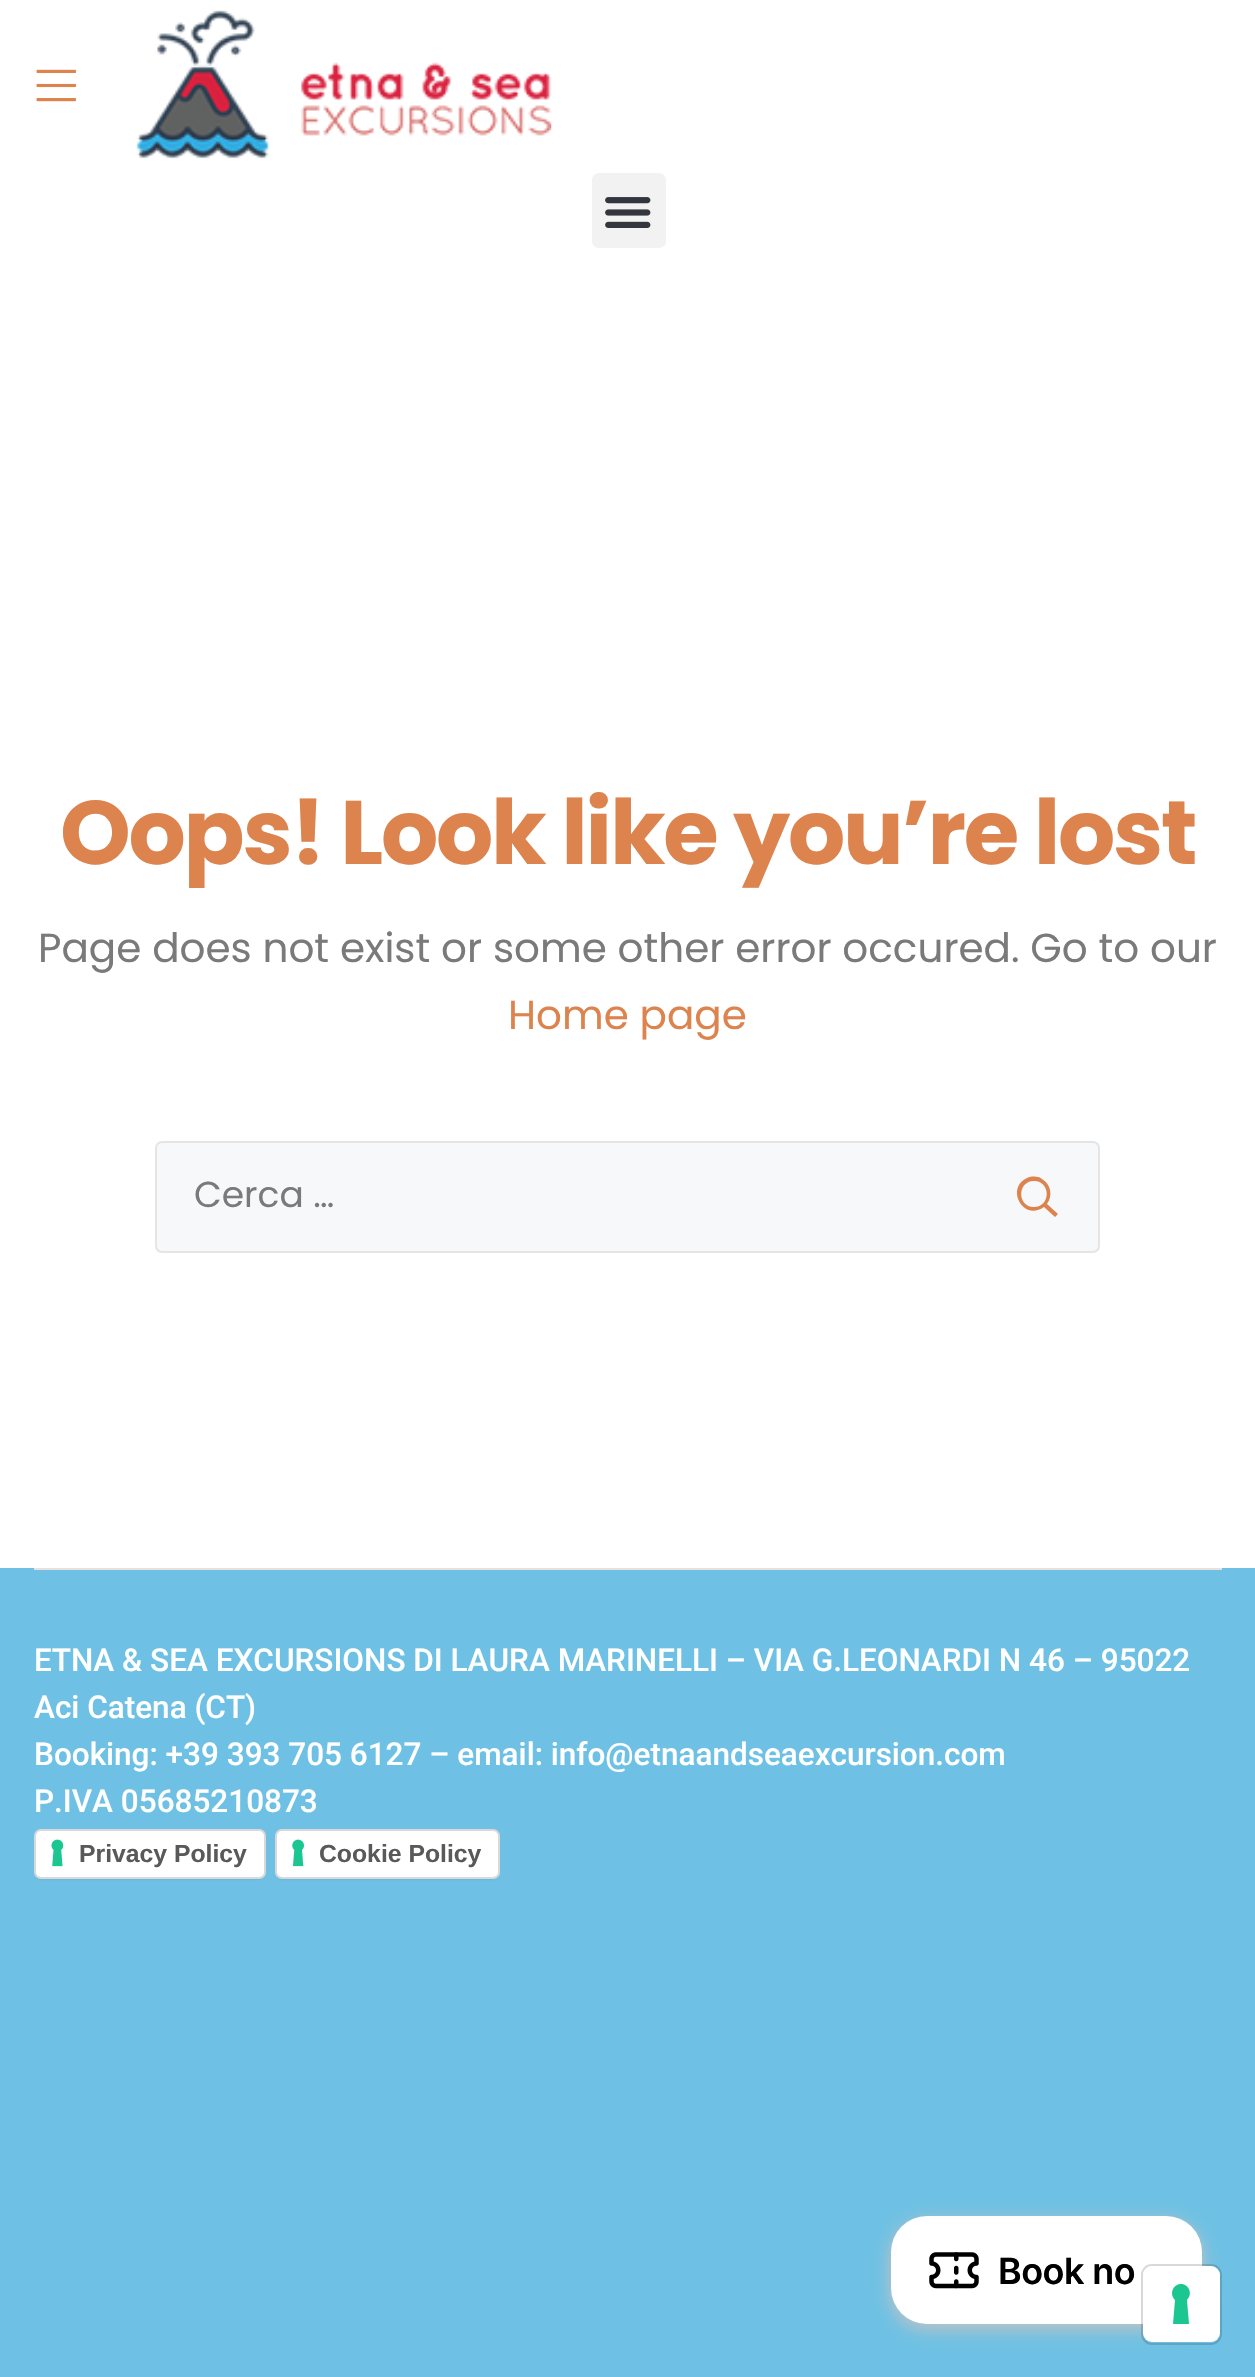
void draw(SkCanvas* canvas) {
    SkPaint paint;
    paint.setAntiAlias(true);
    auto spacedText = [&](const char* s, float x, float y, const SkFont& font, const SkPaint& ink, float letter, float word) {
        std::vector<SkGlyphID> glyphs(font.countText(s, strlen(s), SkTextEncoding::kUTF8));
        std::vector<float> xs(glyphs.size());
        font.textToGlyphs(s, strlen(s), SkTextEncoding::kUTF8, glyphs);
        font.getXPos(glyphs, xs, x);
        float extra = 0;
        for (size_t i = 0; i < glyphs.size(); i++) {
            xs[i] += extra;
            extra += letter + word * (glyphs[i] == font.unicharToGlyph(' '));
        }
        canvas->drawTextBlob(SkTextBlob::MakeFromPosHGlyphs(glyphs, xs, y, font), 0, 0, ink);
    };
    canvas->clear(0xFFFFFFFF);
    canvas->drawImageRect(SkImages::DeferredFromEncodedData(SkData::MakeFromFileName("img1.png")), SkRect::MakeXYWH(36, 69, 40, 33), SkSamplingOptions());
    canvas->drawImageRect(SkImages::DeferredFromEncodedData(SkData::MakeFromFileName("img2.png")), SkRect::MakeXYWH(136, 10, 416, 149), SkSamplingOptions());
    paint.setColor(0xFFF2F2F2);
    canvas->drawRoundRect(SkRect::MakeXYWH(592, 173, 74, 75), 7, 7, paint);
    canvas->drawImageRect(SkImages::DeferredFromEncodedData(SkData::MakeFromFileName("img3.png")), SkRect::MakeXYWH(605, 197, 46, 31), SkSamplingOptions());
    SkFont font1(fontMgr->matchFamilyStyle("Poppins", SkFontStyle::Bold()), 90);
    font1.setSubpixel(true);
    paint.setColor(0xFFDC834E);
    spacedText("Oops! Look like you’re lost", 60, 864, font1, paint, -2.25f, 0);
    SkFont font2(fontMgr->matchFamilyStyle("Poppins", SkFontStyle::Normal()), 40.5f);
    font2.setSubpixel(true);
    paint.setColor(0xFF7A7A7A);
    canvas->drawString("Page does not exist or some other error occured. Go to our", 38, 962, font2, paint);
    paint.setColor(0xFFDC834E);
    canvas->drawString("Home page", 508, 1029, font2, paint);
    paint.setColor(0xFFF7F8FA);
    canvas->drawRoundRect(SkRect::MakeXYWH(155, 1141, 945, 112), 11, 11, paint);
    paint.setStyle(SkPaint::kStroke_Style);
    paint.setStrokeWidth(2);
    paint.setColor(0xFFE5E5E5);
    canvas->drawRoundRect(SkRect::MakeXYWH(156, 1142, 943, 110), 6, 6, paint);
    SkFont font3(fontMgr->matchFamilyStyle("Poppins", SkFontStyle::Normal()), 36);
    font3.setSubpixel(true);
    paint.setStyle(SkPaint::kFill_Style);
    paint.setColor(0xFF7A7A7A);
    canvas->drawString("Cerca …", 194, 1207, font3, paint);
    paint.setColor(0xFFDC834E);
    canvas->drawPath(SkPathBuilder().moveTo(1047, 1204).cubicTo(1053, 1196, 1051, 1184, 1042, 1179).cubicTo(1038, 1176, 1032, 1176, 1027, 1178).cubicTo(1005, 1188, 1023, 1222, 1044, 1207).lineTo(1055, 1217).lineTo(1058, 1214).close().moveTo(1034, 1207).cubicTo(1017, 1207, 1017, 1181, 1034, 1181).cubicTo(1051, 1181, 1051, 1207, 1034, 1207).close().detach(), paint);
    paint.setColor(0xFF6EC1E4);
    canvas->drawRect(SkRect::MakeXYWH(0, 1568, 1255, 809), paint);
    paint.setColor(0xFFE8E0DA);
    canvas->drawRect(SkRect::MakeXYWH(34, 1568, 1188, 2), paint);
    SkFont font4(fontMgr->matchFamilyStyle("Roboto", SkFontStyle(500, SkFontStyle::kNormal_Width, SkFontStyle::kUpright_Slant)), 31.5f);
    font4.setSubpixel(true);
    paint.setColor(0xFFFFFFFF);
    canvas->drawString("ETNA & SEA EXCURSIONS DI LAURA MARINELLI – VIA G.LEONARDI N 46 – 95022", 34, 1671, font4, paint);
    canvas->drawString("Aci Catena (CT)", 34, 1718, font4, paint);
    canvas->drawString("Booking: +39 393 705 6127 – email: info@etnaandseaexcursion.com", 34, 1765, font4, paint);
    canvas->drawString("P.IVA 05685210873", 34, 1812, font4, paint);
    paint.setColor(0x26000000);
    paint.setMaskFilter(SkMaskFilter::MakeBlur(kNormal_SkBlurStyle, 1));
    canvas->drawRoundRect(SkRect::MakeXYWH(36, 1834, 227, 45), 5, 5, paint);
    paint.setMaskFilter(nullptr);
    paint.setColor(0xFFFFFFFF);
    canvas->drawRoundRect(SkRect::MakeXYWH(34, 1829, 232, 50), 7, 7, paint);
    canvas->drawImageRect(SkImages::DeferredFromEncodedData(SkData::MakeFromFileName("img4.png")), SkRect::MakeXYWH(51, 1839, 13, 28), SkSamplingOptions());
    paint.setStyle(SkPaint::kStroke_Style);
    paint.setColor(0x26000000);
    canvas->drawRoundRect(SkRect::MakeXYWH(35, 1830, 230, 48), 6, 6, paint);
    SkFont font5(fontMgr->matchFamilyStyle("Liberation Sans", SkFontStyle::Bold()), 24.75f);
    font5.setSubpixel(true);
    paint.setStyle(SkPaint::kFill_Style);
    paint.setColor(0xFF595959);
    canvas->drawString("Privacy Policy", 79, 1862, font5, paint);
    paint.setColor(0x26000000);
    paint.setMaskFilter(SkMaskFilter::MakeBlur(kNormal_SkBlurStyle, 1));
    canvas->drawRoundRect(SkRect::MakeXYWH(277, 1834, 220, 45), 5, 5, paint);
    paint.setMaskFilter(nullptr);
    paint.setColor(0xFFFFFFFF);
    canvas->drawRoundRect(SkRect::MakeXYWH(275, 1829, 225, 50), 7, 7, paint);
    canvas->drawImageRect(SkImages::DeferredFromEncodedData(SkData::MakeFromFileName("img5.png")), SkRect::MakeXYWH(292, 1839, 12, 28), SkSamplingOptions());
    paint.setStyle(SkPaint::kStroke_Style);
    paint.setColor(0x26000000);
    canvas->drawRoundRect(SkRect::MakeXYWH(276, 1830, 223, 48), 6, 6, paint);
    paint.setStyle(SkPaint::kFill_Style);
    paint.setColor(0xFF595959);
    canvas->drawString("Cookie Policy", 319, 1862, font5, paint);
    paint.setColor(0xFFC4C4C4);
    paint.setMaskFilter(SkMaskFilter::MakeBlur(kNormal_SkBlurStyle, 9));
    canvas->drawRoundRect(SkRect::MakeXYWH(891, 2221, 311, 108), 36, 36, paint);
    paint.setMaskFilter(nullptr);
    paint.setColor(0xFFFFFFFF);
    canvas->drawRoundRect(SkRect::MakeXYWH(891, 2216, 311, 108), 36, 36, paint);
    canvas->drawImageRect(SkImages::DeferredFromEncodedData(SkData::MakeFromFileName("img6.png")), SkRect::MakeXYWH(929, 2252, 50, 37), SkSamplingOptions());
    SkFont font6(fontMgr->matchFamilyStyle("Inter", SkFontStyle(600, SkFontStyle::kNormal_Width, SkFontStyle::kUpright_Slant)), 36);
    font6.setSubpixel(true);
    paint.setColor(0xFF000000);
    spacedText("Book no", 998, 2284, font6, paint, -0.5f, 0);
    paint.setStyle(SkPaint::kStroke_Style);
    paint.setColor(0x26000000);
    canvas->drawRoundRect(SkRect::MakeXYWH(1142, 2265, 79, 79), 10, 10, paint);
    paint.setStyle(SkPaint::kFill_Style);
    paint.setColor(0xFFFFFFFF);
    canvas->drawRoundRect(SkRect::MakeXYWH(1143, 2266, 77, 76), 9, 9, paint);
    paint.setColor(0xFF1CC691);
    canvas->drawPath(SkPathBuilder(SkPathFillType::kEvenOdd).moveTo(1181, 2284).cubicTo(1189, 2284, 1193, 2294, 1187, 2300).lineTo(1189, 2324).lineTo(1173, 2324).lineTo(1175, 2300).cubicTo(1169, 2294, 1173, 2284, 1181, 2284).close().detach(), paint);
}
